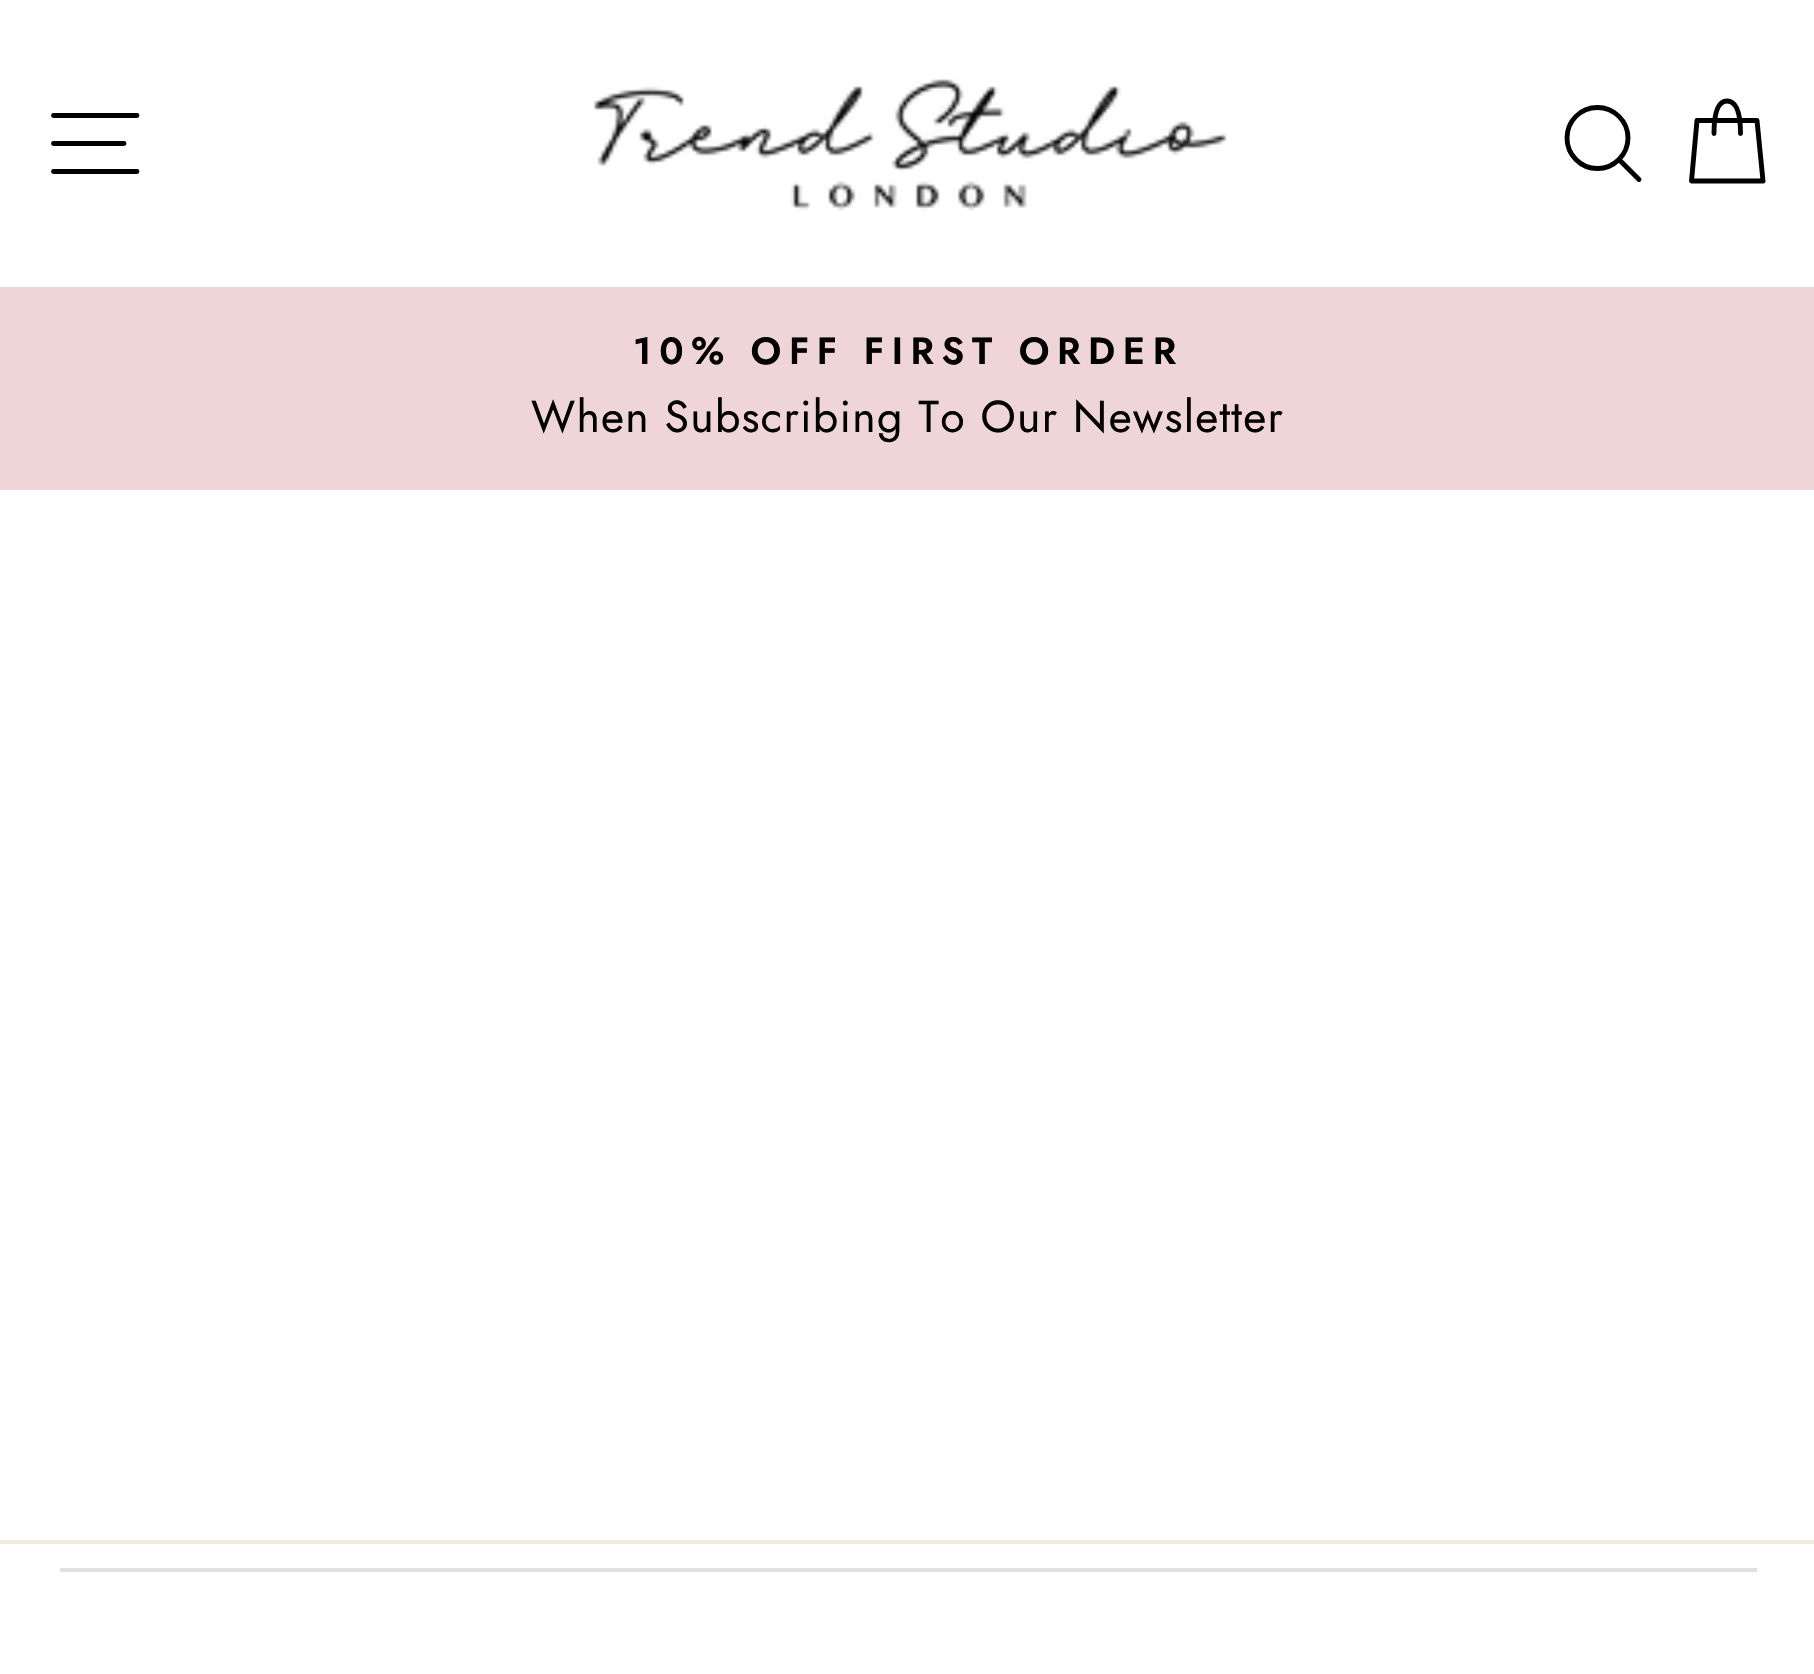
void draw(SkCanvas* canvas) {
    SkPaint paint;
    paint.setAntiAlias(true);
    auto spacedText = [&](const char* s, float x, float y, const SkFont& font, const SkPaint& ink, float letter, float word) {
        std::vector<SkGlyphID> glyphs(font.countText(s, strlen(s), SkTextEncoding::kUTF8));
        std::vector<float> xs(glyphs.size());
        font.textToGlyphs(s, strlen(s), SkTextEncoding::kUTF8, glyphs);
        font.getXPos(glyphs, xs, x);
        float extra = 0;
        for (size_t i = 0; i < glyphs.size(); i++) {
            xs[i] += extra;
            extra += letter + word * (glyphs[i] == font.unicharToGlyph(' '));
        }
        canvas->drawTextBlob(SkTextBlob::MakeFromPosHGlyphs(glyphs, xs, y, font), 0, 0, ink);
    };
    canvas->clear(0xFFFFFFFF);
    paint.setStyle(SkPaint::kStroke_Style);
    paint.setStrokeWidth(4.9f);
    paint.setStrokeCap(SkPaint::kRound_Cap);
    paint.setStrokeJoin(SkPaint::kRound_Join);
    paint.setColor(0xFF000000);
    canvas->drawPath(SkPathBuilder().moveTo(53.5f, 115.5f).lineTo(137, 115.5f).moveTo(53.5f, 143.5f).lineTo(124, 143.5f).moveTo(53.5f, 171.5f).lineTo(137, 171.5f).detach(), paint);
    canvas->drawImageRect(SkImages::DeferredFromEncodedData(SkData::MakeFromFileName("img1.png")), SkRect::MakeXYWH(593, 79, 634, 132), SkSamplingOptions());
    canvas->drawPath(SkPathBuilder().moveTo(1628, 138).cubicTo(1628, 154.5f, 1614, 168.5f, 1597.5f, 168.5f).cubicTo(1580.5f, 168.5f, 1567, 154.5f, 1567, 138).cubicTo(1567, 121, 1580.5f, 107.5f, 1597.5f, 107.5f).cubicTo(1614, 107.5f, 1628, 121, 1628, 138).close().moveTo(1639, 179.5f).lineTo(1619.5f, 160).detach(), paint);
    canvas->drawPath(SkPathBuilder().moveTo(1714, 133.5f).cubicTo(1714, 108, 1720, 101, 1727, 101).cubicTo(1734.5f, 101, 1740.5f, 108, 1740.5f, 133.5f).detach(), paint);
    canvas->drawPath(SkPathBuilder().moveTo(1697, 120.5f).lineTo(1757, 120.5f).lineTo(1763, 181).lineTo(1691.5f, 181).close().detach(), paint);
    paint.setStyle(SkPaint::kFill_Style);
    paint.setColor(0xFFEFD4D8);
    canvas->drawRect(SkRect::MakeXYWH(0, 287, 1814, 203), paint);
    SkFont font1(fontMgr->matchFamilyStyle("Jost", SkFontStyle(600, SkFontStyle::kNormal_Width, SkFontStyle::kUpright_Slant)), 37.9f);
    font1.setSubpixel(true);
    paint.setColor(0xFF000000);
    spacedText("10% OFF FIRST ORDER", 633, 364, font1, paint, 7.6f, 0);
    SkFont font2(fontMgr->matchFamilyStyle("Jost", SkFontStyle::Normal()), 44.6f);
    font2.setSubpixel(true);
    spacedText("When Subscribing To Our Newsletter", 531, 432, font2, paint, 1.25f, 0);
    paint.setColor(0xFFF2EADE);
    canvas->drawRect(SkRect::MakeXYWH(0, 1540, 1814, 4), paint);
    paint.setColor(0xFFE0E0E0);
    canvas->drawRect(SkRect::MakeXYWH(60, 1568, 1697, 4), paint);
}
